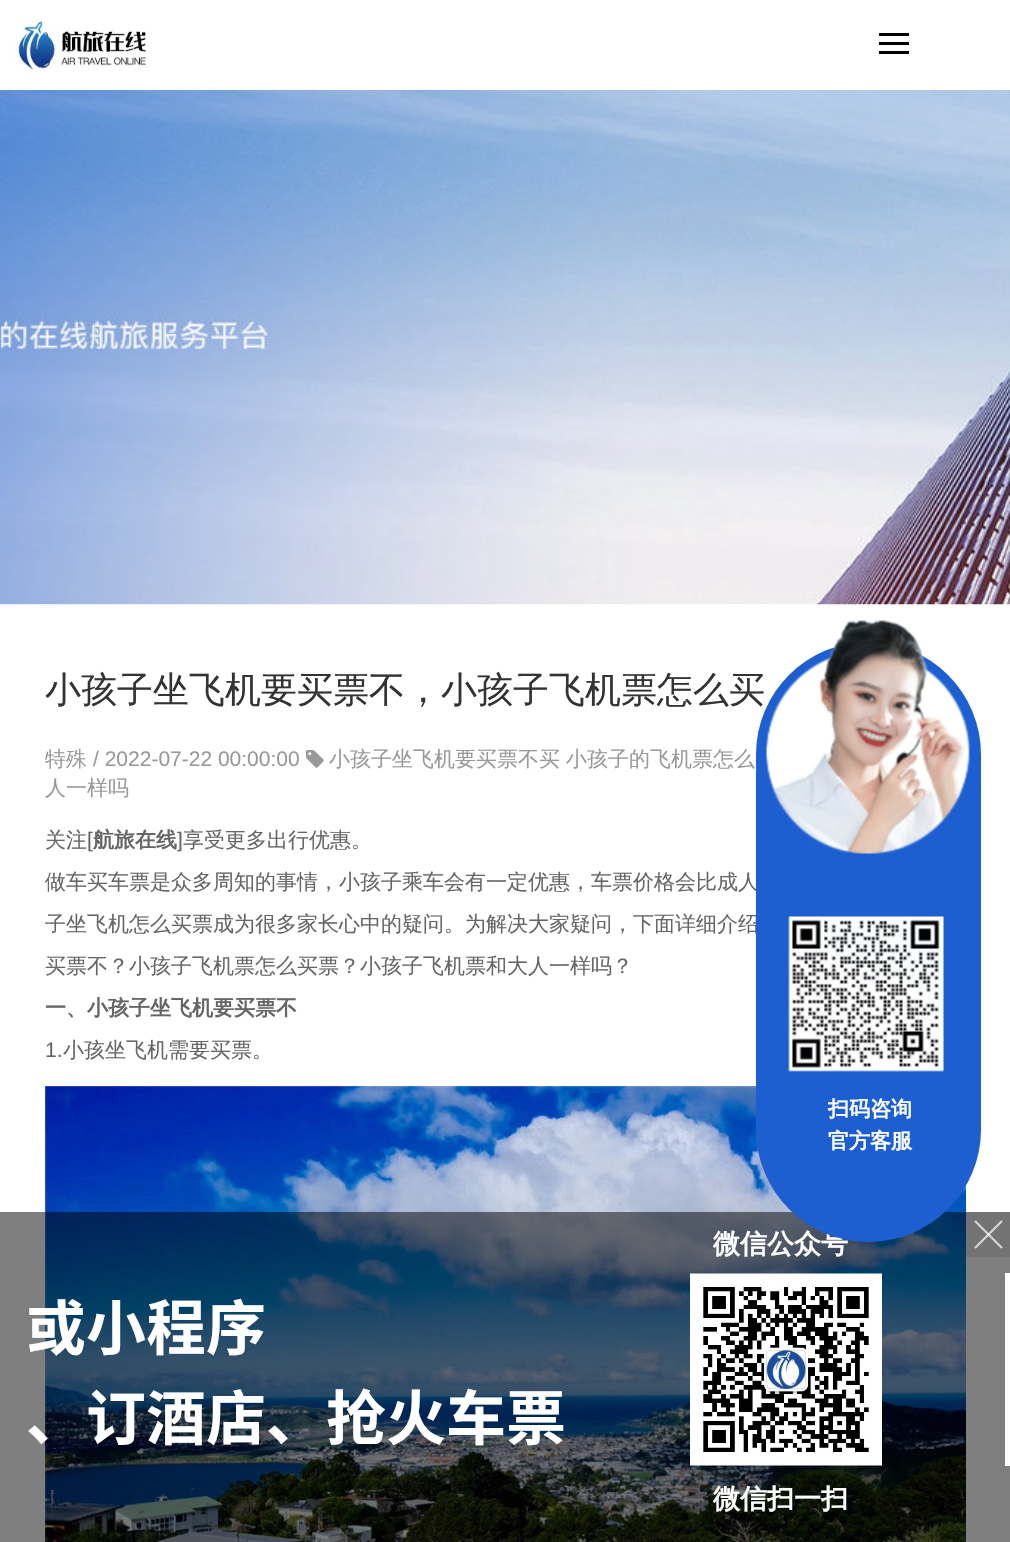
void draw(SkCanvas* canvas) {
    SkPaint paint;
    paint.setAntiAlias(true);
    canvas->clear(0xFFFFFFFF);
    canvas->drawImageRect(SkImages::DeferredFromEncodedData(SkData::MakeFromFileName("img1.png")), SkRect::MakeXYWH(15, 21, 131, 52), SkSamplingOptions());
    paint.setColor(0xFF000000);
    canvas->drawRect(SkRect::MakeXYWH(879, 33, 30, 3), paint);
    canvas->drawRect(SkRect::MakeXYWH(879, 42, 30, 3), paint);
    canvas->drawRect(SkRect::MakeXYWH(879, 51, 30, 3), paint);
    canvas->drawImageRect(SkImages::DeferredFromEncodedData(SkData::MakeFromFileName("img2.png")), SkRect::MakeXYWH(0, 90, 1010, 515), SkSamplingOptions());
    SkFont font1(fontMgr->matchFamilyStyle("WenQuanYi Zen Hei", SkFontStyle(500, SkFontStyle::kNormal_Width, SkFontStyle::kUpright_Slant)), 36);
    font1.setSubpixel(true);
    paint.setColor(0xFF333333);
    canvas->drawString("小孩子坐飞机要买票不，小孩子飞机票怎么买", 45, 702, font1, paint);
    SkFont font2(fontMgr->matchFamilyStyle("WenQuanYi Zen Hei", SkFontStyle(500, SkFontStyle::kNormal_Width, SkFontStyle::kUpright_Slant)), 21);
    font2.setSubpixel(true);
    paint.setColor(0xFF999999);
    canvas->drawString("特殊", 45, 766, font2, paint);
    canvas->drawImageRect(SkImages::DeferredFromEncodedData(SkData::MakeFromFileName("img3.png")), SkRect::MakeXYWH(306, 750, 18, 18), SkSamplingOptions());
    canvas->drawString("小孩子坐飞机要买票不买", 329, 766, font2, paint);
    canvas->drawString("小孩子的飞机票怎么", 566, 766, font2, paint);
    canvas->drawString("人一样吗", 45, 795, font2, paint);
    SkFont font3(fontMgr->matchFamilyStyle("Liberation Sans", SkFontStyle::Normal()), 21);
    font3.setSubpixel(true);
    canvas->drawString("/ 2022-07-22 00:00:00", 93, 766, font3, paint);
    paint.setColor(0xFF666666);
    canvas->drawString("关注", 45, 847, font2, paint);
    canvas->drawString("[", 87, 847, font3, paint);
    SkFont font4(fontMgr->matchFamilyStyle("WenQuanYi Zen Hei", SkFontStyle::Bold()), 21);
    font4.setSubpixel(true);
    canvas->drawString("航旅在线", 93, 847, font4, paint);
    canvas->drawString("]", 177, 847, font3, paint);
    canvas->drawString("享受更多出行优惠。", 183, 847, font2, paint);
    canvas->drawString("做车买车票是众多周知的事情，小孩子乘车会有一定优惠，车票价格会比成人", 45, 889, font2, paint);
    canvas->drawString("子坐飞机怎么买票成为很多家长心中的疑问。为解决大家疑问，下面详细介绍", 45, 931, font2, paint);
    canvas->drawString("买票不？小孩子飞机票怎么买票？小孩子飞机票和大人一样吗？", 45, 973, font2, paint);
    canvas->drawString("一、小孩子坐飞机要买票不", 45, 1015, font4, paint);
    canvas->drawString("1.", 45, 1057, font3, paint);
    canvas->drawString("小孩坐飞机需要买票。", 63, 1057, font2, paint);
    canvas->drawImageRect(SkImages::DeferredFromEncodedData(SkData::MakeFromFileName("img4.png")), SkRect::MakeXYWH(45, 1086, 921, 456), SkSamplingOptions());
    paint.setColor(0x80000000);
    canvas->drawRect(SkRect::MakeXYWH(0, 1212, 1010, 330), paint);
    SkFont font5(fontMgr->matchFamilyStyle("WenQuanYi Zen Hei", SkFontStyle::Bold()), 27);
    font5.setSubpixel(true);
    paint.setColor(0xFFFFFFFF);
    canvas->drawString("微信公众号", 713, 1253, font5, paint);
    paint.setColor(0xFF737373);
    canvas->drawRect(SkRect::MakeXYWH(966, 1212, 44, 45), paint);
    paint.setStyle(SkPaint::kStroke_Style);
    paint.setStrokeWidth(2.1f);
    paint.setColor(0xFFD5D5D5);
    canvas->drawPath(SkPathBuilder().moveTo(975, 1221).lineTo(1002, 1248).detach(), paint);
    paint.setColor(0xB3FFFFFF);
    canvas->drawPath(SkPathBuilder().moveTo(1002, 1221).lineTo(975, 1248).detach(), paint);
    paint.setStyle(SkPaint::kFill_Style);
    paint.setColor(0xFF1D5FD1);
    canvas->drawRoundRect(SkRect::MakeXYWH(756, 642, 225, 600), 112.5f, 112.5f, paint);
    canvas->drawImageRect(SkImages::DeferredFromEncodedData(SkData::MakeFromFileName("img5.png")), SkRect::MakeXYWH(766, 619, 204, 235), SkSamplingOptions());
    canvas->drawImageRect(SkImages::DeferredFromEncodedData(SkData::MakeFromFileName("img6.png")), SkRect::MakeXYWH(788, 916, 156, 156), SkSamplingOptions());
    paint.setColor(0xFFFFFFFF);
    canvas->drawString("扫码咨询", 828, 1116, font4, paint);
    canvas->drawString("官方客服", 828, 1148, font4, paint);
    SkFont font6(fontMgr->matchFamilyStyle("Noto Sans SC", SkFontStyle::Bold()), 60);
    font6.setSubpixel(true);
    canvas->drawString("或小程序", 26, 1350, font6, paint);
    canvas->drawString("、订酒店、抢火车票", 26, 1440, font6, paint);
    canvas->drawImageRect(SkImages::DeferredFromEncodedData(SkData::MakeFromFileName("img7.png")), SkRect::MakeXYWH(690, 1273, 192, 193), SkSamplingOptions());
    canvas->drawRect(SkRect::MakeXYWH(1005, 1273, 5, 193), paint);
    canvas->drawString("微信扫一扫", 713, 1508, font5, paint);
}
